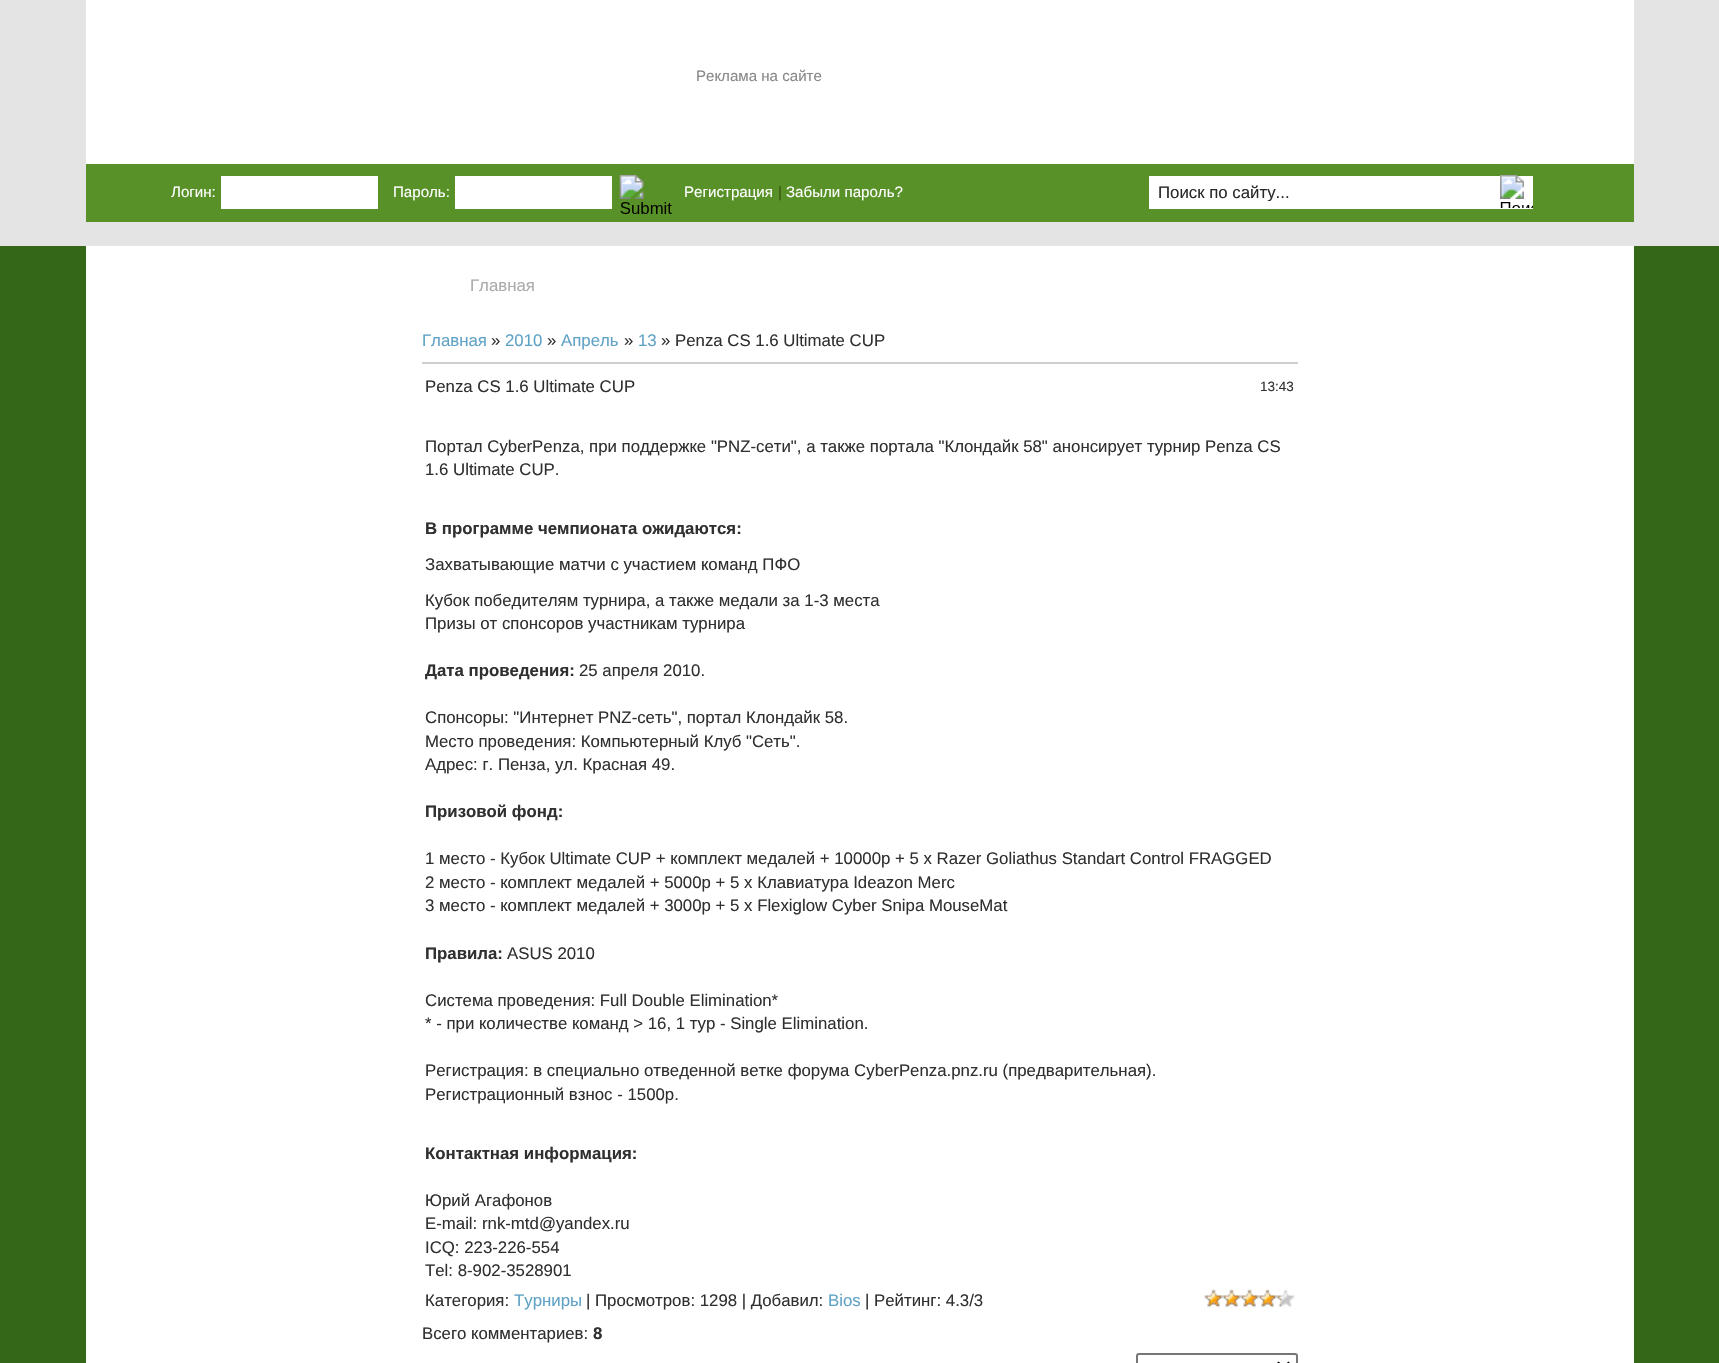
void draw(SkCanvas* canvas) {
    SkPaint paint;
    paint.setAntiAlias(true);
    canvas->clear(0xFFE4E4E4);
    paint.setColor(0xFFFFFFFF);
    canvas->drawRect(SkRect::MakeXYWH(86, 0, 1548, 164), paint);
    SkFont font1(fontMgr->matchFamilyStyle("Liberation Sans", SkFontStyle::Normal()), 15.1f);
    font1.setSubpixel(true);
    paint.setColor(0xFF888888);
    canvas->drawString("Реклама на сайте", 696, 81, font1, paint);
    paint.setColor(0xFF579127);
    canvas->drawRect(SkRect::MakeXYWH(86, 164, 1548, 58), paint);
    paint.setColor(0xFFFFFFFF);
    canvas->drawString("Логин:", 171, 197, font1, paint);
    canvas->drawRect(SkRect::MakeXYWH(221, 176, 157, 33), paint);
    canvas->drawString("Пароль:", 393, 197, font1, paint);
    canvas->drawRect(SkRect::MakeXYWH(455, 176, 157, 33), paint);
    canvas->drawImageRect(SkImages::DeferredFromEncodedData(SkData::MakeFromFileName("img1.png")), SkRect::MakeXYWH(619, 175, 53, 39), SkSamplingOptions());
    canvas->drawString("Регистрация", 684, 197, font1, paint);
    paint.setColor(0xFF39540F);
    canvas->drawString("|", 778, 197, font1, paint);
    paint.setColor(0xFFFFFFFF);
    canvas->drawString("Забыли пароль?", 786, 197, font1, paint);
    canvas->drawRect(SkRect::MakeXYWH(1149, 176, 384, 33), paint);
    canvas->save();
    canvas->clipRect(SkRect::MakeXYWH(1158, 183, 338, 18));
    SkFont font2(fontMgr->matchFamilyStyle("Liberation Sans", SkFontStyle::Normal()), 16.8f);
    font2.setSubpixel(true);
    paint.setColor(0xFF292929);
    canvas->drawString("Поиск по сайту...", 1158, 198, font2, paint);
    canvas->restore();
    canvas->drawImageRect(SkImages::DeferredFromEncodedData(SkData::MakeFromFileName("img2.png")), SkRect::MakeXYWH(1500, 175, 33, 33), SkSamplingOptions());
    paint.setColor(0xFF356718);
    canvas->drawRect(SkRect::MakeXYWH(0, 246, 1719, 1117), paint);
    paint.setColor(0xFFFFFFFF);
    canvas->drawRect(SkRect::MakeXYWH(86, 246, 1548, 1117), paint);
    paint.setColor(0xFFABABAB);
    canvas->drawString("Главная", 470, 291, font2, paint);
    paint.setColor(0xFF60A2C6);
    canvas->drawString("Главная", 422, 346, font2, paint);
    paint.setColor(0xFF303030);
    canvas->drawString("»", 491, 346, font2, paint);
    paint.setColor(0xFF60A2C6);
    canvas->drawString("2010", 505, 346, font2, paint);
    paint.setColor(0xFF303030);
    canvas->drawString("»", 547, 346, font2, paint);
    paint.setColor(0xFF60A2C6);
    canvas->drawString("Апрель", 561, 346, font2, paint);
    paint.setColor(0xFF303030);
    canvas->drawString("»", 624, 346, font2, paint);
    paint.setColor(0xFF60A2C6);
    canvas->drawString("13", 638, 346, font2, paint);
    paint.setColor(0xFF303030);
    canvas->drawString("» Penza CS 1.6 Ultimate CUP", 661, 346, font2, paint);
    paint.setColor(0xFFCFCFCF);
    canvas->drawRect(SkRect::MakeXYWH(422, 362, 876, 2), paint);
    paint.setColor(0xFF303030);
    canvas->drawString("Penza CS 1.6 Ultimate CUP", 425, 392, font2, paint);
    SkFont font3(fontMgr->matchFamilyStyle("Liberation Sans", SkFontStyle::Normal()), 13.5f);
    font3.setSubpixel(true);
    canvas->drawString("13:43", 1260, 391, font3, paint);
    canvas->drawString("Портал CyberPenza, при поддержке \"PNZ-сети\", а также портала \"Клондайк 58\" анонсирует турнир Penza CS", 425, 452, font2, paint);
    canvas->drawString("1.6 Ultimate CUP.", 425, 475, font2, paint);
    SkFont font4(fontMgr->matchFamilyStyle("Liberation Sans", SkFontStyle::Bold()), 16.8f);
    font4.setSubpixel(true);
    canvas->drawString("В программе чемпионата ожидаются:", 425, 534, font4, paint);
    canvas->drawString("Захватывающие матчи с участием команд ПФО", 425, 570, font2, paint);
    canvas->drawString("Кубок победителям турнира, а также медали за 1-3 места", 425, 606, font2, paint);
    canvas->drawString("Призы от спонсоров участникам турнира", 425, 629, font2, paint);
    canvas->drawString("Дата проведения:", 425, 676, font4, paint);
    canvas->drawString("25 апреля 2010.", 579, 676, font2, paint);
    canvas->drawString("Спонсоры: \"Интернет PNZ-сеть\", портал Клондайк 58.", 425, 723, font2, paint);
    canvas->drawString("Место проведения: Компьютерный Клуб \"Сеть\".", 425, 747, font2, paint);
    canvas->drawString("Адрес: г. Пенза, ул. Красная 49.", 425, 770, font2, paint);
    canvas->drawString("Призовой фонд:", 425, 817, font4, paint);
    canvas->drawString("1 место - Кубок Ultimate CUP + комплект медалей + 10000р + 5 х Razer Goliathus Standart Control FRAGGED", 425, 864, font2, paint);
    canvas->drawString("2 место - комплект медалей + 5000р + 5 х Клавиатура Ideazon Merc", 425, 888, font2, paint);
    canvas->drawString("3 место - комплект медалей + 3000р + 5 х Flexiglow Cyber Snipa MouseMat", 425, 911, font2, paint);
    canvas->drawString("Правила:", 425, 959, font4, paint);
    canvas->drawString("ASUS 2010", 507, 959, font2, paint);
    canvas->drawString("Система проведения: Full Double Elimination*", 425, 1006, font2, paint);
    canvas->drawString("* - при количестве команд > 16, 1 тур - Single Elimination.", 425, 1029, font2, paint);
    canvas->drawString("Регистрация: в специально отведенной ветке форума CyberPenza.pnz.ru (предварительная).", 425, 1076, font2, paint);
    canvas->drawString("Регистрационный взнос - 1500р.", 425, 1100, font2, paint);
    canvas->drawString("Контактная информация:", 425, 1159, font4, paint);
    canvas->drawString("Юрий Агафонов", 425, 1206, font2, paint);
    canvas->drawString("E-mail: rnk-mtd@yandex.ru", 425, 1229, font2, paint);
    canvas->drawString("ICQ: 223-226-554", 425, 1253, font2, paint);
    canvas->drawString("Tel: 8-902-3528901", 425, 1276, font2, paint);
    canvas->drawString("Категория:", 425, 1306, font2, paint);
    paint.setColor(0xFF60A2C6);
    canvas->drawString("Турниры", 514, 1306, font2, paint);
    paint.setColor(0xFF303030);
    canvas->drawString("| Просмотров: 1298 | Добавил:", 586, 1306, font2, paint);
    paint.setColor(0xFF60A2C6);
    canvas->drawString("Bios", 828, 1306, font2, paint);
    paint.setColor(0xFF303030);
    canvas->drawString("| Рейтинг: 4.3/3", 865, 1306, font2, paint);
    canvas->drawImageRect(SkImages::DeferredFromEncodedData(SkData::MakeFromFileName("img3.png")), SkRect::MakeXYWH(1204, 1289, 91, 19), SkSamplingOptions());
    canvas->drawImageRect(SkImages::DeferredFromEncodedData(SkData::MakeFromFileName("img4.png")), SkRect::MakeXYWH(1204, 1289, 77, 19), SkSamplingOptions());
    canvas->drawString("Всего комментариев:", 422, 1339, font2, paint);
    canvas->drawString("8", 593, 1339, font4, paint);
    paint.setStyle(SkPaint::kStroke_Style);
    paint.setStrokeWidth(2);
    paint.setColor(0xFF767676);
    canvas->drawRoundRect(SkRect::MakeXYWH(1137, 1354, 160, 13), 2, 2, paint);
    paint.setStrokeWidth(3);
    paint.setColor(0xFF000000);
    canvas->drawPath(SkPathBuilder().moveTo(1277.5f, 1362.5f).lineTo(1283.5f, 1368.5f).lineTo(1289.5f, 1362.5f).detach(), paint);
}
